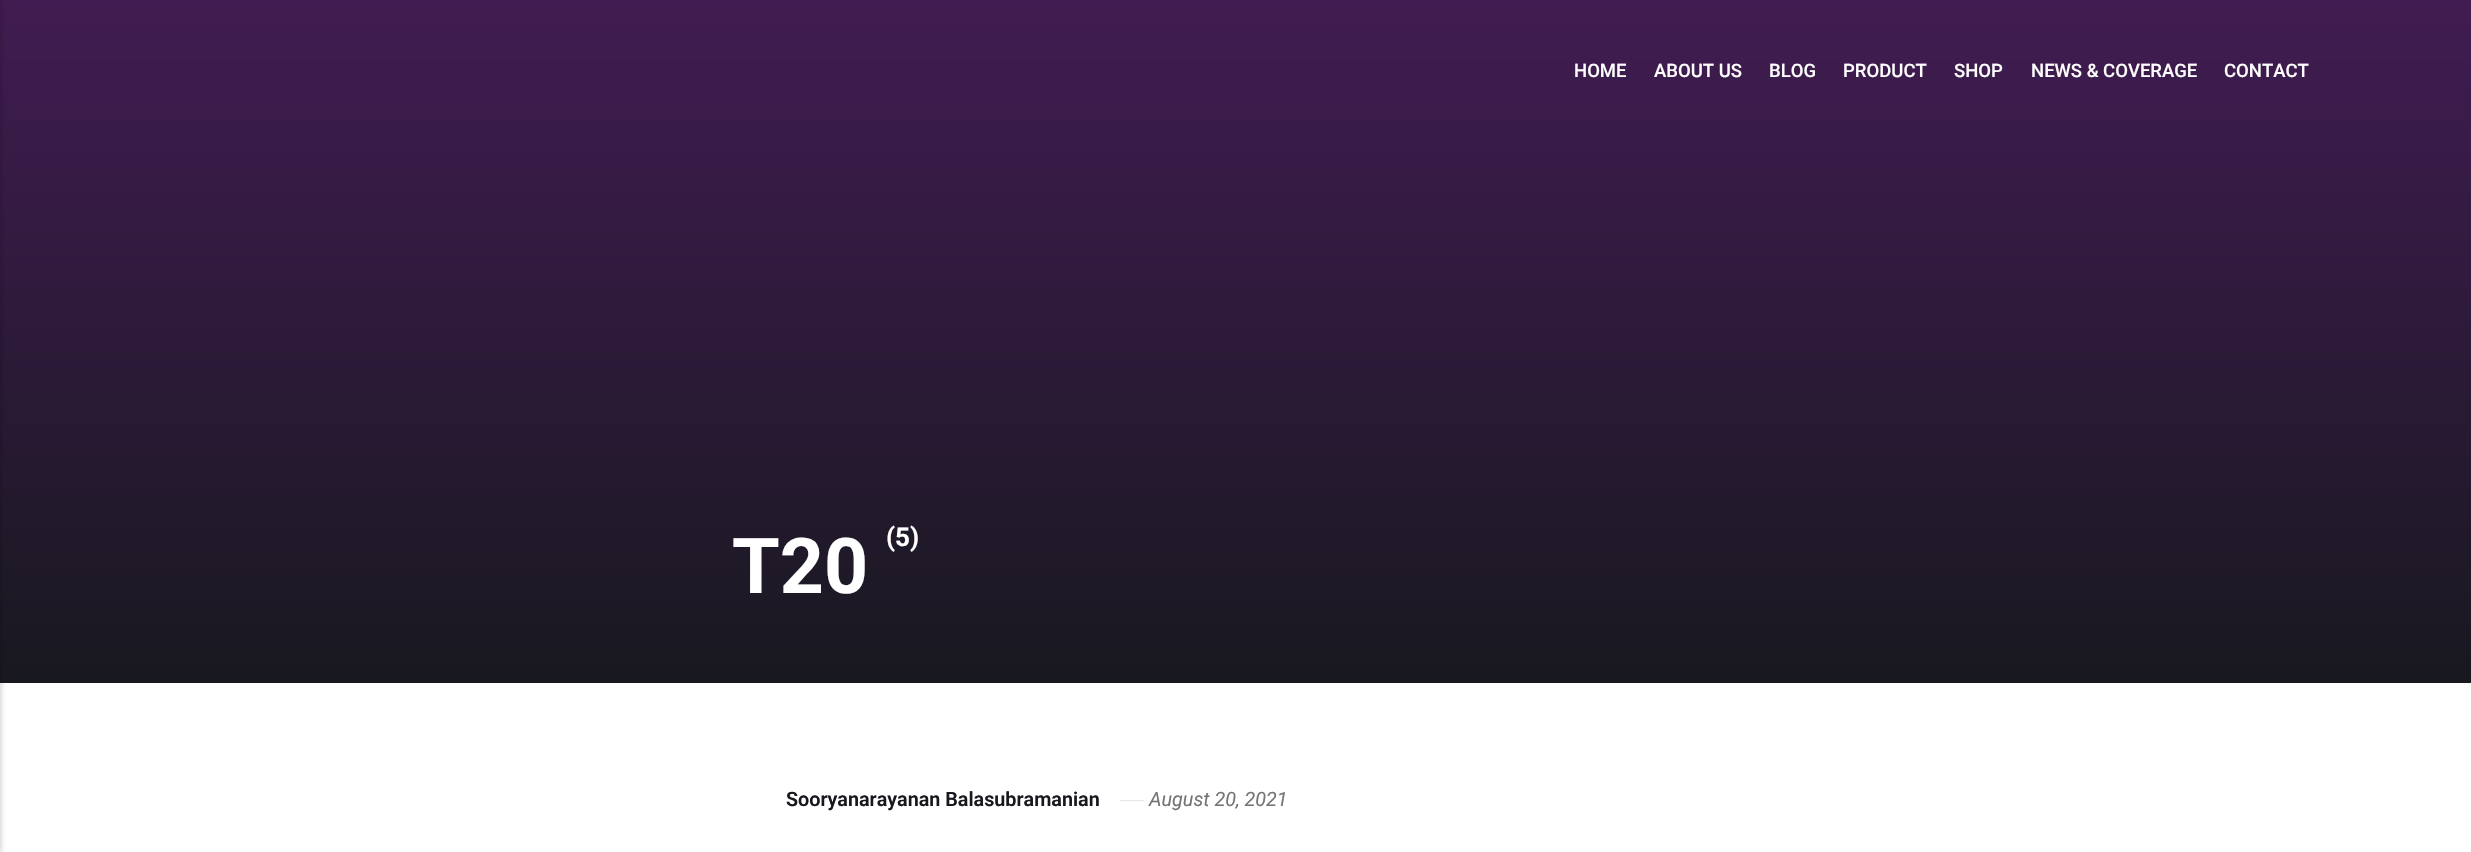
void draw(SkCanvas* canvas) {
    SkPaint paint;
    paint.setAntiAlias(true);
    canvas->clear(0xFFFFFFFF);
    {
        const SkColor colors[] = {0xFF18181F, 0xFF411C52};
        const float stops[] = {0, 1};
        const SkPoint ends[] = {{1236, 683}, {1236, 0}};
        paint.setShader(SkGradientShader::MakeLinear(ends, colors, stops, 2, SkTileMode::kClamp));
        paint.setAlpha(255);
    }
    canvas->drawRect(SkRect::MakeXYWH(0, 0, 2471, 683), paint);
    paint.setShader(nullptr);
    paint.setColor(0x40000000);
    paint.setMaskFilter(SkMaskFilter::MakeBlur(kNormal_SkBlurStyle, 3));
    canvas->drawRect(SkRect::MakeXYWH(-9, 0, 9, 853), paint);
    paint.setMaskFilter(nullptr);
    SkFont font1(fontMgr->matchFamilyStyle("Roboto", SkFontStyle(500, SkFontStyle::kNormal_Width, SkFontStyle::kUpright_Slant)), 18.5f);
    font1.setSubpixel(true);
    paint.setColor(0xFFFFFFFF);
    canvas->drawString("HOME", 1574, 77, font1, paint);
    canvas->drawString("ABOUT US", 1654, 77, font1, paint);
    canvas->drawString("BLOG", 1769, 77, font1, paint);
    canvas->drawString("PRODUCT", 1843, 77, font1, paint);
    canvas->drawString("SHOP", 1954, 77, font1, paint);
    canvas->drawString("NEWS & COVERAGE", 2031, 77, font1, paint);
    canvas->drawString("CONTACT", 2224, 77, font1, paint);
    SkFont font2(fontMgr->matchFamilyStyle("Roboto", SkFontStyle::Bold()), 77);
    font2.setSubpixel(true);
    canvas->drawString("T20", 732, 593, font2, paint);
    SkFont font3(fontMgr->matchFamilyStyle("Roboto", SkFontStyle::Bold()), 26);
    font3.setSubpixel(true);
    canvas->drawString("(5)", 886, 546, font3, paint);
    SkFont font4(fontMgr->matchFamilyStyle("Roboto", SkFontStyle(600, SkFontStyle::kNormal_Width, SkFontStyle::kUpright_Slant)), 19.75f);
    font4.setSubpixel(true);
    paint.setColor(0xFF17181E);
    canvas->drawString("Sooryanarayanan Balasubramanian", 786, 806, font4, paint);
    paint.setColor(0xFFE6E7EB);
    canvas->drawRect(SkRect::MakeXYWH(1120, 800, 24, 1), paint);
    SkFont font5(fontMgr->matchFamilyStyle("Roboto", SkFontStyle::Italic()), 19.75f);
    font5.setSubpixel(true);
    paint.setColor(0xFF747577);
    canvas->drawString("August 20, 2021", 1149, 806, font5, paint);
}
